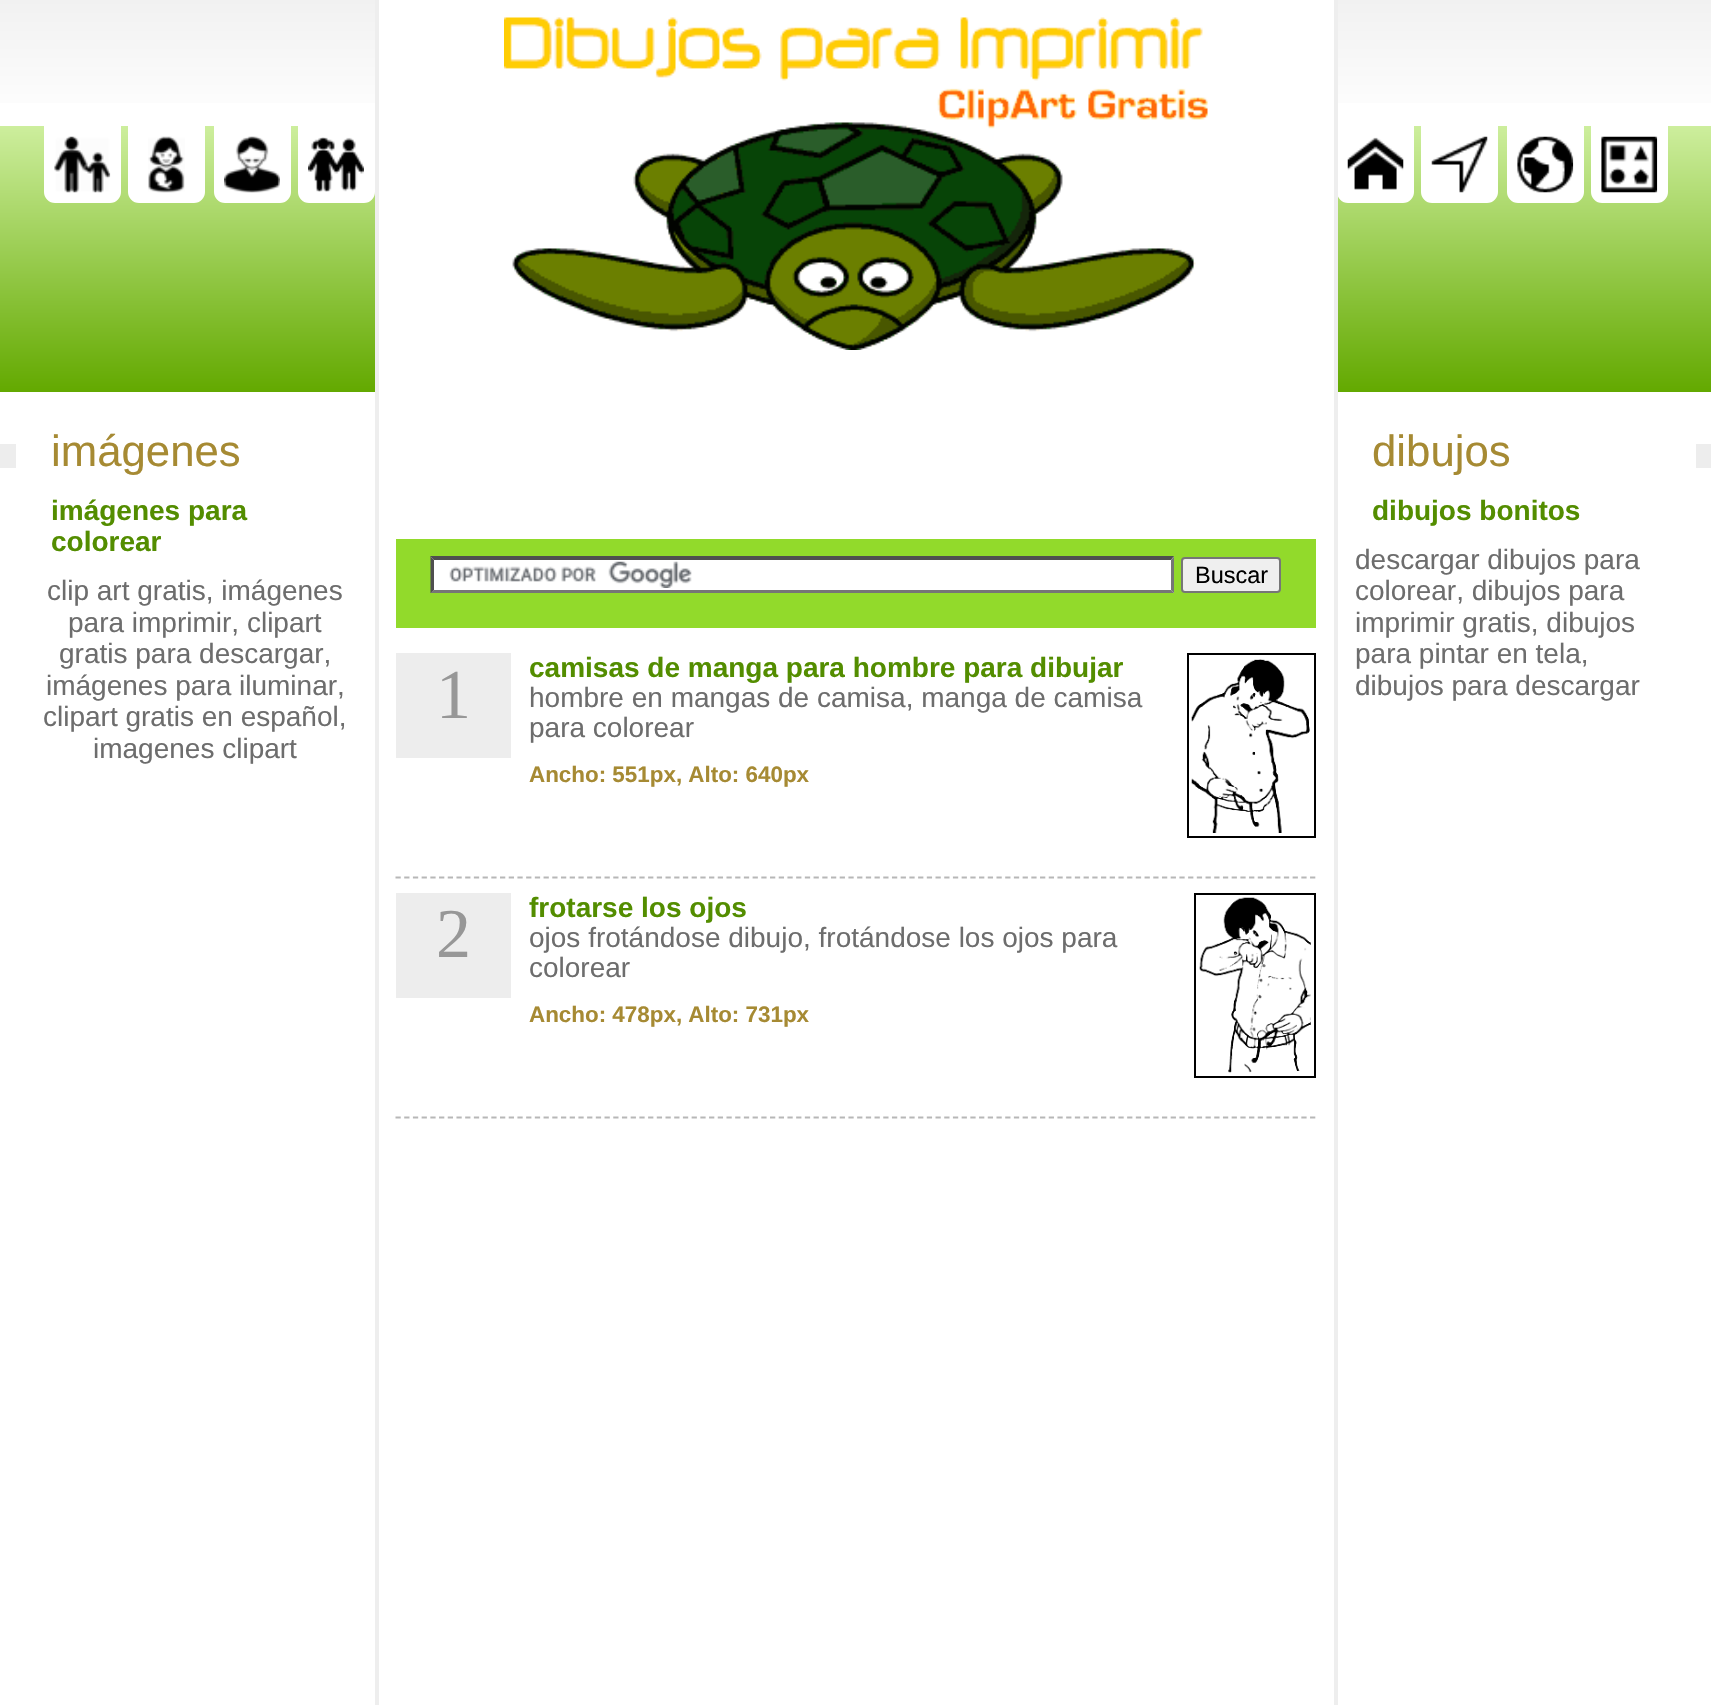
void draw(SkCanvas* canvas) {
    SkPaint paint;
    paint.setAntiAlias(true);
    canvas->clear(0xFFFFFFFF);
    {
        const SkColor colors[] = {0xFFF1F1F1, 0xFFFFFFFF};
        const float stops[] = {0, 1};
        const SkPoint ends[] = {{856, 0}, {856, 126}};
        paint.setShader(SkGradientShader::MakeLinear(ends, colors, stops, 2, SkTileMode::kClamp));
        paint.setAlpha(255);
    }
    canvas->drawRect(SkRect::MakeXYWH(0, 0, 1711, 103), paint);
    {
        const SkColor colors[] = {0xFFCDEE9D, 0xFF63A900};
        const float stops[] = {0, 1};
        const SkPoint ends[] = {{856, 126}, {856, 392}};
        paint.setShader(SkGradientShader::MakeLinear(ends, colors, stops, 2, SkTileMode::kClamp));
        paint.setAlpha(255);
    }
    canvas->drawRect(SkRect::MakeXYWH(0, 126, 1711, 266), paint);
    paint.setShader(nullptr);
    paint.setColor(0xFFFFFFFF);
    canvas->drawPath(SkPathBuilder().moveTo(49.5f, 131.5f).lineTo(115.5f, 131.5f).lineTo(115.5f, 192).cubicTo(115.5f, 195, 113, 197.5f, 110, 197.5f).lineTo(55, 197.5f).cubicTo(52, 197.5f, 49.5f, 195, 49.5f, 192).close().detach(), paint);
    paint.setStyle(SkPaint::kStroke_Style);
    paint.setStrokeWidth(11);
    canvas->drawPath(SkPathBuilder().moveTo(49.5f, 131.5f).lineTo(115.5f, 131.5f).lineTo(115.5f, 192).cubicTo(115.5f, 195, 113, 197.5f, 110, 197.5f).lineTo(55, 197.5f).cubicTo(52, 197.5f, 49.5f, 195, 49.5f, 192).close().detach(), paint);
    paint.setStyle(SkPaint::kFill_Style);
    canvas->drawPath(SkPathBuilder().moveTo(133.5f, 131.5f).lineTo(199.5f, 131.5f).lineTo(199.5f, 192).cubicTo(199.5f, 195, 197, 197.5f, 194, 197.5f).lineTo(139, 197.5f).cubicTo(136, 197.5f, 133.5f, 195, 133.5f, 192).close().detach(), paint);
    paint.setStyle(SkPaint::kStroke_Style);
    canvas->drawPath(SkPathBuilder().moveTo(133.5f, 131.5f).lineTo(199.5f, 131.5f).lineTo(199.5f, 192).cubicTo(199.5f, 195, 197, 197.5f, 194, 197.5f).lineTo(139, 197.5f).cubicTo(136, 197.5f, 133.5f, 195, 133.5f, 192).close().detach(), paint);
    paint.setStyle(SkPaint::kFill_Style);
    canvas->drawPath(SkPathBuilder().moveTo(219.5f, 131.5f).lineTo(285.5f, 131.5f).lineTo(285.5f, 192).cubicTo(285.5f, 195, 283, 197.5f, 280, 197.5f).lineTo(225, 197.5f).cubicTo(222, 197.5f, 219.5f, 195, 219.5f, 192).close().detach(), paint);
    paint.setStyle(SkPaint::kStroke_Style);
    canvas->drawPath(SkPathBuilder().moveTo(219.5f, 131.5f).lineTo(285.5f, 131.5f).lineTo(285.5f, 192).cubicTo(285.5f, 195, 283, 197.5f, 280, 197.5f).lineTo(225, 197.5f).cubicTo(222, 197.5f, 219.5f, 195, 219.5f, 192).close().detach(), paint);
    paint.setStyle(SkPaint::kFill_Style);
    canvas->drawPath(SkPathBuilder().moveTo(303.5f, 131.5f).lineTo(369.5f, 131.5f).lineTo(369.5f, 192).cubicTo(369.5f, 195, 367, 197.5f, 364, 197.5f).lineTo(309, 197.5f).cubicTo(306, 197.5f, 303.5f, 195, 303.5f, 192).close().detach(), paint);
    paint.setStyle(SkPaint::kStroke_Style);
    canvas->drawPath(SkPathBuilder().moveTo(303.5f, 131.5f).lineTo(369.5f, 131.5f).lineTo(369.5f, 192).cubicTo(369.5f, 195, 367, 197.5f, 364, 197.5f).lineTo(309, 197.5f).cubicTo(306, 197.5f, 303.5f, 195, 303.5f, 192).close().detach(), paint);
    canvas->drawImageRect(SkImages::DeferredFromEncodedData(SkData::MakeFromFileName("img1.png")), SkRect::MakeXYWH(54, 136, 57, 57), SkSamplingOptions());
    canvas->drawImageRect(SkImages::DeferredFromEncodedData(SkData::MakeFromFileName("img2.png")), SkRect::MakeXYWH(148, 136, 37, 57), SkSamplingOptions());
    canvas->drawImageRect(SkImages::DeferredFromEncodedData(SkData::MakeFromFileName("img3.png")), SkRect::MakeXYWH(224, 136, 56, 57), SkSamplingOptions());
    canvas->drawImageRect(SkImages::DeferredFromEncodedData(SkData::MakeFromFileName("img4.png")), SkRect::MakeXYWH(308, 137, 56, 55), SkSamplingOptions());
    paint.setStyle(SkPaint::kFill_Style);
    canvas->drawRect(SkRect::MakeXYWH(379, 0, 955, 392), paint);
    canvas->drawPath(SkPathBuilder().moveTo(1342.5f, 131.5f).lineTo(1408.5f, 131.5f).lineTo(1408.5f, 192).cubicTo(1408.5f, 195, 1406, 197.5f, 1403, 197.5f).lineTo(1348, 197.5f).cubicTo(1345, 197.5f, 1342.5f, 195, 1342.5f, 192).close().detach(), paint);
    paint.setStyle(SkPaint::kStroke_Style);
    canvas->drawPath(SkPathBuilder().moveTo(1342.5f, 131.5f).lineTo(1408.5f, 131.5f).lineTo(1408.5f, 192).cubicTo(1408.5f, 195, 1406, 197.5f, 1403, 197.5f).lineTo(1348, 197.5f).cubicTo(1345, 197.5f, 1342.5f, 195, 1342.5f, 192).close().detach(), paint);
    paint.setStyle(SkPaint::kFill_Style);
    paint.setColor(0xFFEEEEEE);
    canvas->drawRect(SkRect::MakeXYWH(1334, 0, 4, 392), paint);
    canvas->drawRect(SkRect::MakeXYWH(375, 0, 4, 392), paint);
    canvas->drawImageRect(SkImages::DeferredFromEncodedData(SkData::MakeFromFileName("img5.png")), SkRect::MakeXYWH(504, 17, 704, 333), SkSamplingOptions());
    paint.setColor(0xFFFFFFFF);
    canvas->drawPath(SkPathBuilder().moveTo(1426.5f, 131.5f).lineTo(1492.5f, 131.5f).lineTo(1492.5f, 192).cubicTo(1492.5f, 195, 1490, 197.5f, 1487, 197.5f).lineTo(1432, 197.5f).cubicTo(1429, 197.5f, 1426.5f, 195, 1426.5f, 192).close().detach(), paint);
    paint.setStyle(SkPaint::kStroke_Style);
    canvas->drawPath(SkPathBuilder().moveTo(1426.5f, 131.5f).lineTo(1492.5f, 131.5f).lineTo(1492.5f, 192).cubicTo(1492.5f, 195, 1490, 197.5f, 1487, 197.5f).lineTo(1432, 197.5f).cubicTo(1429, 197.5f, 1426.5f, 195, 1426.5f, 192).close().detach(), paint);
    paint.setStyle(SkPaint::kFill_Style);
    canvas->drawPath(SkPathBuilder().moveTo(1512.5f, 131.5f).lineTo(1578.5f, 131.5f).lineTo(1578.5f, 192).cubicTo(1578.5f, 195, 1576, 197.5f, 1573, 197.5f).lineTo(1518, 197.5f).cubicTo(1515, 197.5f, 1512.5f, 195, 1512.5f, 192).close().detach(), paint);
    paint.setStyle(SkPaint::kStroke_Style);
    canvas->drawPath(SkPathBuilder().moveTo(1512.5f, 131.5f).lineTo(1578.5f, 131.5f).lineTo(1578.5f, 192).cubicTo(1578.5f, 195, 1576, 197.5f, 1573, 197.5f).lineTo(1518, 197.5f).cubicTo(1515, 197.5f, 1512.5f, 195, 1512.5f, 192).close().detach(), paint);
    canvas->drawPath(SkPathBuilder().moveTo(1596.5f, 131.5f).lineTo(1662.5f, 131.5f).lineTo(1662.5f, 192).cubicTo(1662.5f, 195, 1660, 197.5f, 1657, 197.5f).lineTo(1602, 197.5f).cubicTo(1599, 197.5f, 1596.5f, 195, 1596.5f, 192).close().detach(), paint);
    canvas->drawImageRect(SkImages::DeferredFromEncodedData(SkData::MakeFromFileName("img6.png")), SkRect::MakeXYWH(1347, 137, 57, 53), SkSamplingOptions());
    canvas->drawImageRect(SkImages::DeferredFromEncodedData(SkData::MakeFromFileName("img7.png")), SkRect::MakeXYWH(1431, 136, 57, 57), SkSamplingOptions());
    canvas->drawImageRect(SkImages::DeferredFromEncodedData(SkData::MakeFromFileName("img8.png")), SkRect::MakeXYWH(1517, 136, 57, 57), SkSamplingOptions());
    canvas->drawImageRect(SkImages::DeferredFromEncodedData(SkData::MakeFromFileName("img9.png")), SkRect::MakeXYWH(1601, 136, 57, 57), SkSamplingOptions());
    paint.setStyle(SkPaint::kFill_Style);
    paint.setColor(0xFFEDEDED);
    canvas->drawRect(SkRect::MakeXYWH(0, 444, 1711, 24), paint);
    paint.setColor(0xFFFFFFFF);
    canvas->drawRect(SkRect::MakeXYWH(16, 444, 359, 24), paint);
    SkFont font1(fontMgr->matchFamilyStyle("Liberation Sans", SkFontStyle::Normal()), 43.75f);
    font1.setSubpixel(true);
    paint.setColor(0xFFA68A33);
    canvas->drawString("imágenes", 51, 466, font1, paint);
    SkFont font2(fontMgr->matchFamilyStyle("Liberation Sans", SkFontStyle::Bold()), 28);
    font2.setSubpixel(true);
    paint.setColor(0xFF538D00);
    canvas->drawString("imágenes para", 51, 520, font2, paint);
    canvas->drawString("colorear", 51, 551, font2, paint);
    SkFont font3(fontMgr->matchFamilyStyle("Liberation Sans", SkFontStyle::Normal()), 28);
    font3.setSubpixel(true);
    paint.setColor(0xFF6D6D6D);
    canvas->drawString("clip art gratis, imágenes", 47, 600, font3, paint);
    canvas->drawString("para imprimir, clipart", 68, 632, font3, paint);
    canvas->drawString("gratis para descargar,", 59, 663, font3, paint);
    canvas->drawString("imágenes para iluminar,", 46, 695, font3, paint);
    canvas->drawString("clipart gratis en español,", 43, 726, font3, paint);
    canvas->drawString("imagenes clipart", 93, 758, font3, paint);
    paint.setColor(0xFFFFFFFF);
    canvas->drawRect(SkRect::MakeXYWH(379, 444, 955, 24), paint);
    paint.setColor(0xFFEEEEEE);
    canvas->drawRect(SkRect::MakeXYWH(1334, 392, 4, 1313), paint);
    canvas->drawRect(SkRect::MakeXYWH(375, 392, 4, 1313), paint);
    paint.setColor(0xFF92DA2B);
    canvas->drawRect(SkRect::MakeXYWH(396, 539, 920, 89), paint);
    paint.setColor(0xFFFFFFFF);
    canvas->drawRect(SkRect::MakeXYWH(431, 557, 743, 36), paint);
    canvas->drawImageRect(SkImages::DeferredFromEncodedData(SkData::MakeFromFileName("img10.png")), SkRect::MakeXYWH(449, 561, 243, 27), SkSamplingOptions());
    paint.setColor(0xFF4F4F4F);
    canvas->drawPath(SkPathBuilder().moveTo(430, 556).lineTo(1174, 556).lineTo(1171, 560).lineTo(434, 560).close().detach(), paint);
    paint.setColor(0xFF767676);
    canvas->drawPath(SkPathBuilder().moveTo(1174, 556.5f).lineTo(1174, 593).lineTo(1171, 590).lineTo(1171, 560).close().detach(), paint);
    canvas->drawPath(SkPathBuilder().moveTo(1174, 593).lineTo(430, 593).lineTo(434, 590).lineTo(1171, 590).close().detach(), paint);
    paint.setColor(0xFF4F4F4F);
    canvas->drawPath(SkPathBuilder().moveTo(430.5f, 593).lineTo(430.5f, 556.5f).lineTo(434, 560).lineTo(434, 590).close().detach(), paint);
    paint.setColor(0xFFEFEFEF);
    canvas->drawRoundRect(SkRect::MakeXYWH(1182, 558, 98, 34), 3, 3, paint);
    paint.setStyle(SkPaint::kStroke_Style);
    paint.setStrokeWidth(2);
    paint.setColor(0xFF767676);
    canvas->drawRoundRect(SkRect::MakeXYWH(1182, 558, 98, 34), 3, 3, paint);
    SkFont font4(fontMgr->matchFamilyStyle("Liberation Sans", SkFontStyle::Normal()), 23.5f);
    font4.setSubpixel(true);
    paint.setStyle(SkPaint::kFill_Style);
    paint.setColor(0xFF000000);
    canvas->drawString("Buscar", 1195, 583, font4, paint);
    paint.setStyle(SkPaint::kStroke_Style);
    paint.setStrokeWidth(1.8f);
    paint.setColor(0xFFB7B7B7);
    paint.setPathEffect(SkDashPathEffect::Make({{5.25f, 3.46f}}, 0));
    canvas->drawPath(SkPathBuilder().moveTo(395.5f, 877.5f).lineTo(1316, 877.5f).detach(), paint);
    paint.setPathEffect(nullptr);
    paint.setStyle(SkPaint::kFill_Style);
    paint.setColor(0xFFEDEDED);
    canvas->drawRect(SkRect::MakeXYWH(396, 653, 115, 105), paint);
    SkFont font5(fontMgr->matchFamilyStyle("Liberation Serif", SkFontStyle::Normal()), 70);
    font5.setSubpixel(true);
    paint.setColor(0xFF979797);
    canvas->drawString("1", 436, 718, font5, paint);
    paint.setColor(0xFF538D00);
    canvas->drawString("camisas de manga para hombre para dibujar", 529, 677, font2, paint);
    paint.setStyle(SkPaint::kStroke_Style);
    paint.setStrokeWidth(2);
    paint.setColor(0xFF000000);
    canvas->drawRect(SkRect::MakeXYWH(1188, 654, 127, 183), paint);
    canvas->drawImageRect(SkImages::DeferredFromEncodedData(SkData::MakeFromFileName("img11.png")), SkRect::MakeXYWH(1191, 659, 119, 174), SkSamplingOptions());
    paint.setStyle(SkPaint::kFill_Style);
    paint.setColor(0xFF6D6D6D);
    canvas->drawString("hombre en mangas de camisa, manga de camisa", 529, 707, font3, paint);
    canvas->drawString("para colorear", 529, 737, font3, paint);
    SkFont font6(fontMgr->matchFamilyStyle("Liberation Sans", SkFontStyle::Bold()), 22.4f);
    font6.setSubpixel(true);
    paint.setColor(0xFFA68A33);
    canvas->drawString("Ancho: 551px, Alto: 640px", 529, 782, font6, paint);
    paint.setStyle(SkPaint::kStroke_Style);
    paint.setStrokeWidth(1.8f);
    paint.setColor(0xFFB7B7B7);
    paint.setPathEffect(SkDashPathEffect::Make({{5.25f, 3.46f}}, 0));
    canvas->drawPath(SkPathBuilder().moveTo(395.5f, 1117.5f).lineTo(1316, 1117.5f).detach(), paint);
    paint.setPathEffect(nullptr);
    paint.setStyle(SkPaint::kFill_Style);
    paint.setColor(0xFFEDEDED);
    canvas->drawRect(SkRect::MakeXYWH(396, 893, 115, 105), paint);
    paint.setColor(0xFF979797);
    canvas->drawString("2", 436, 957, font5, paint);
    paint.setColor(0xFF538D00);
    canvas->drawString("frotarse los ojos", 529, 917, font2, paint);
    paint.setStyle(SkPaint::kStroke_Style);
    paint.setStrokeWidth(2);
    paint.setColor(0xFF000000);
    canvas->drawRect(SkRect::MakeXYWH(1195, 894, 120, 183), paint);
    canvas->drawImageRect(SkImages::DeferredFromEncodedData(SkData::MakeFromFileName("img12.png")), SkRect::MakeXYWH(1199, 897, 112, 176), SkSamplingOptions());
    paint.setStyle(SkPaint::kFill_Style);
    paint.setColor(0xFF6D6D6D);
    canvas->drawString("ojos frotándose dibujo, frotándose los ojos para", 529, 947, font3, paint);
    canvas->drawString("colorear", 529, 977, font3, paint);
    paint.setColor(0xFFA68A33);
    canvas->drawString("Ancho: 478px, Alto: 731px", 529, 1022, font6, paint);
    paint.setColor(0xFFFFFFFF);
    canvas->drawRect(SkRect::MakeXYWH(1338, 444, 358, 24), paint);
    paint.setColor(0xFFA68A33);
    canvas->drawString("dibujos", 1372, 466, font1, paint);
    paint.setColor(0xFF538D00);
    canvas->drawString("dibujos bonitos", 1372, 520, font2, paint);
    paint.setColor(0xFF6D6D6D);
    canvas->drawString("descargar dibujos para", 1355, 569, font3, paint);
    canvas->drawString("colorear, dibujos para", 1355, 600, font3, paint);
    canvas->drawString("imprimir gratis, dibujos", 1355, 632, font3, paint);
    canvas->drawString("para pintar en tela,", 1355, 663, font3, paint);
    canvas->drawString("dibujos para descargar", 1355, 695, font3, paint);
}
